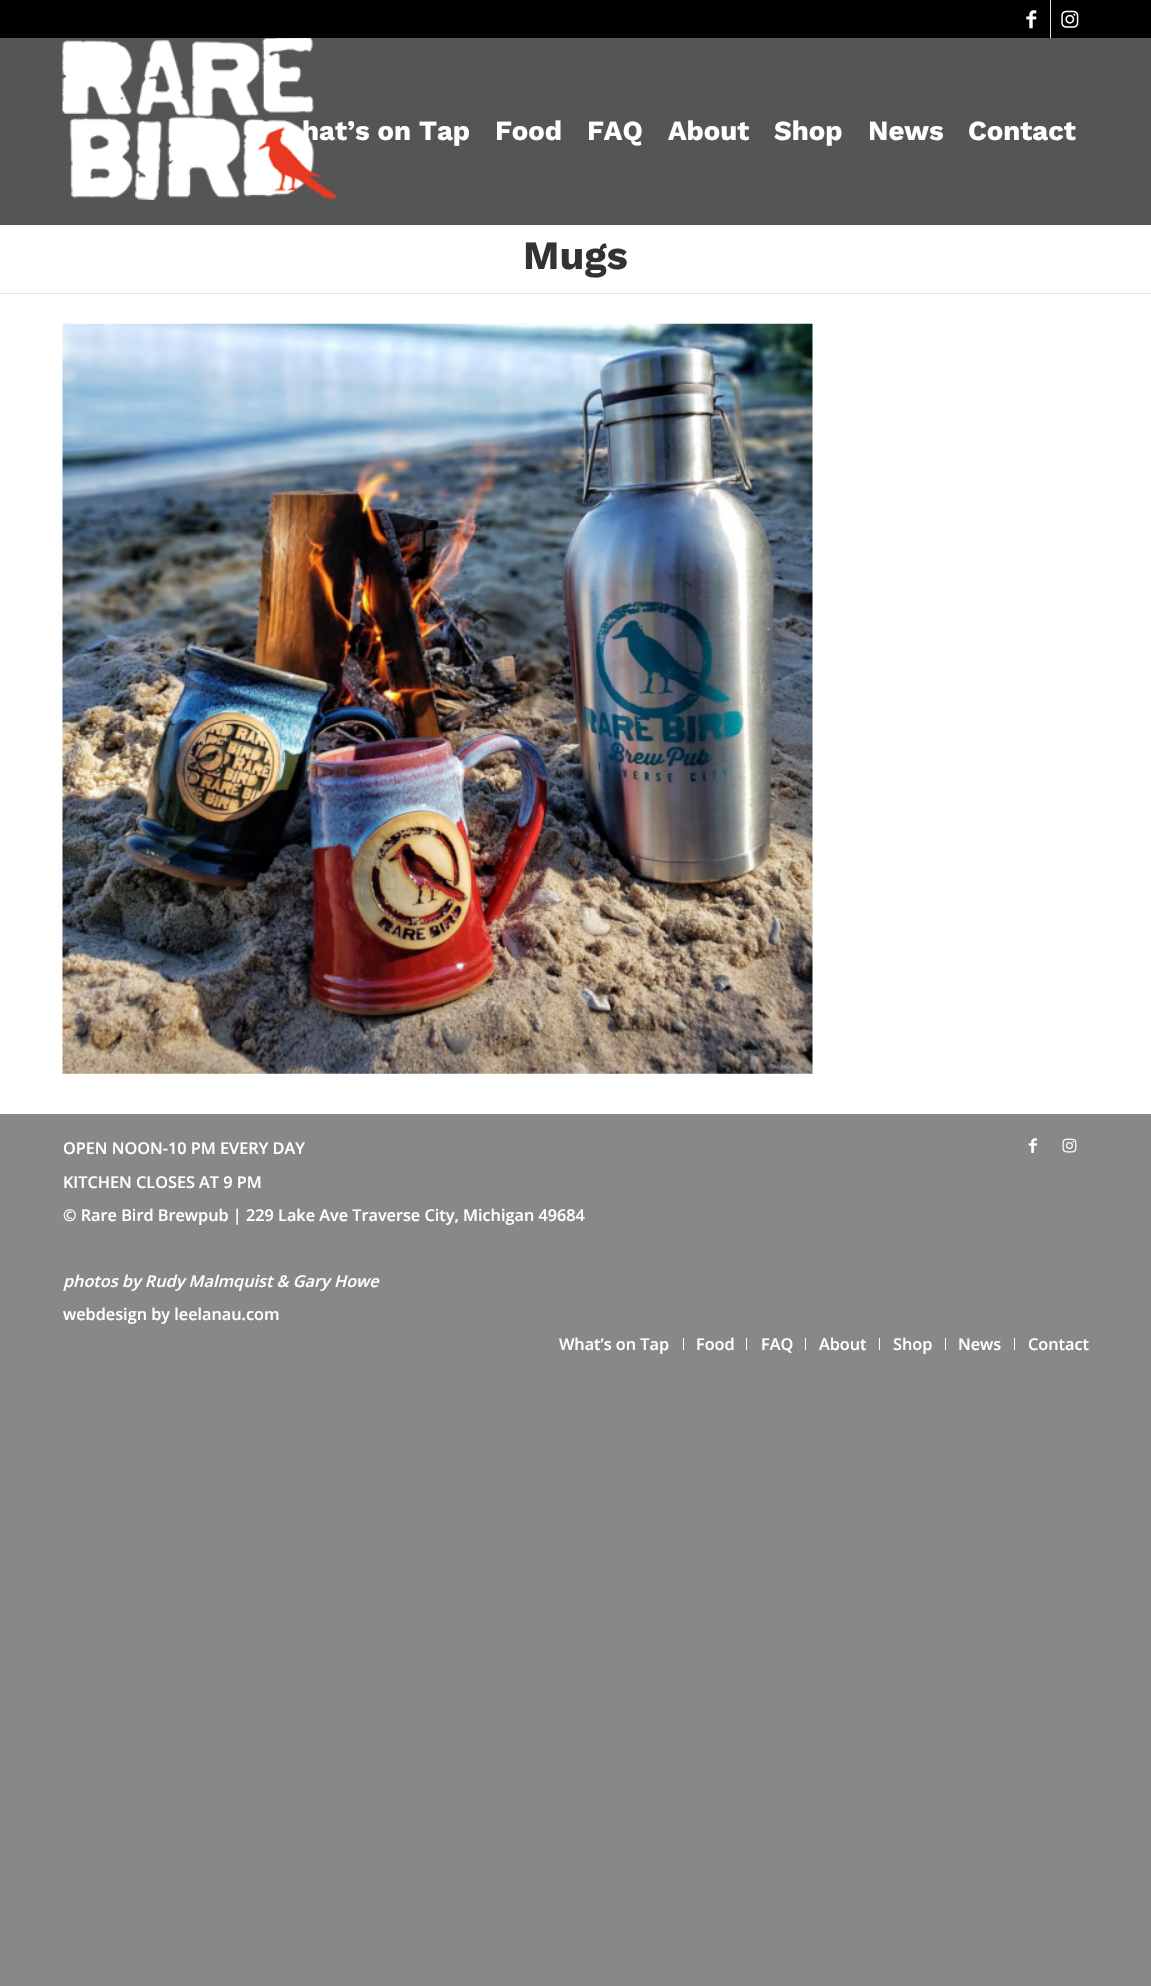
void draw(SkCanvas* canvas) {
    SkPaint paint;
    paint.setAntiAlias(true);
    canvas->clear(0xFF888888);
    paint.setColor(0xFF000000);
    canvas->drawRect(SkRect::MakeXYWH(0, 0, 1151, 38), paint);
    paint.setColor(0xFFE1E1E1);
    canvas->drawRect(SkRect::MakeXYWH(1050, 0, 1, 38), paint);
    canvas->drawImageRect(SkImages::DeferredFromEncodedData(SkData::MakeFromFileName("img1.png")), SkRect::MakeXYWH(1026, 10, 11, 19), SkSamplingOptions());
    canvas->drawImageRect(SkImages::DeferredFromEncodedData(SkData::MakeFromFileName("img2.png")), SkRect::MakeXYWH(1061, 10, 18, 18), SkSamplingOptions());
    paint.setColor(0xFF555555);
    canvas->drawRect(SkRect::MakeXYWH(0, 38, 1151, 187), paint);
    canvas->drawImageRect(SkImages::DeferredFromEncodedData(SkData::MakeFromFileName("img3.png")), SkRect::MakeXYWH(62, 38, 275, 162), SkSamplingOptions());
    SkFont font1(fontMgr->matchFamilyStyle("Work Sans", SkFontStyle::Bold()), 27.5f);
    font1.setSubpixel(true);
    paint.setColor(0xFFFFFFFF);
    canvas->drawString("hat’s on Tap", 302, 140, font1, paint);
    canvas->drawString("Food", 495, 140, font1, paint);
    canvas->drawString("FAQ", 587, 140, font1, paint);
    canvas->drawString("About", 668, 140, font1, paint);
    canvas->drawString("Shop", 774, 140, font1, paint);
    canvas->drawString("News", 868, 140, font1, paint);
    canvas->drawString("Contact", 968, 140, font1, paint);
    canvas->drawRect(SkRect::MakeXYWH(0, 225, 1151, 68), paint);
    SkFont font2(fontMgr->matchFamilyStyle("Work Sans", SkFontStyle::Bold()), 40);
    font2.setSubpixel(true);
    paint.setColor(0xFF333333);
    canvas->drawString("Mugs", 523, 269, font2, paint);
    paint.setColor(0xFFFFFFFF);
    canvas->drawRect(SkRect::MakeXYWH(0, 294, 1151, 820), paint);
    paint.setColor(0xFFE1E1E1);
    canvas->drawRect(SkRect::MakeXYWH(0, 293, 1151, 1), paint);
    canvas->drawImageRect(SkImages::DeferredFromEncodedData(SkData::MakeFromFileName("img4.png")), SkRect::MakeXYWH(62, 323, 751, 751), SkSamplingOptions());
    SkFont font3(fontMgr->matchFamilyStyle("Open Sans", SkFontStyle(600, SkFontStyle::kNormal_Width, SkFontStyle::kUpright_Slant)), 16.25f);
    font3.setSubpixel(true);
    paint.setColor(0xFFFFFFFF);
    canvas->drawString("OPEN NOON-10 PM EVERY DAY", 63, 1154, font3, paint);
    canvas->drawString("KITCHEN CLOSES AT 9 PM", 63, 1188, font3, paint);
    canvas->drawString("© Rare Bird Brewpub | 229 Lake Ave Traverse City, Michigan 49684", 63, 1221, font3, paint);
    SkFont font4(fontMgr->matchFamilyStyle("Open Sans", SkFontStyle(600, SkFontStyle::kNormal_Width, SkFontStyle::kItalic_Slant)), 16.25f);
    font4.setSubpixel(true);
    canvas->drawString("photos by Rudy Malmquist & Gary Howe", 63, 1287, font4, paint);
    canvas->drawString("webdesign by leelanau.com", 63, 1320, font3, paint);
    canvas->drawImageRect(SkImages::DeferredFromEncodedData(SkData::MakeFromFileName("img5.png")), SkRect::MakeXYWH(1028, 1138, 9, 15), SkSamplingOptions());
    canvas->drawImageRect(SkImages::DeferredFromEncodedData(SkData::MakeFromFileName("img6.png")), SkRect::MakeXYWH(1062, 1138, 15, 15), SkSamplingOptions());
    canvas->drawString("What’s on Tap", 559, 1350, font3, paint);
    canvas->drawRect(SkRect::MakeXYWH(683, 1338, 1, 12), paint);
    canvas->drawString("Food", 696, 1350, font3, paint);
    canvas->drawRect(SkRect::MakeXYWH(746, 1338, 1, 12), paint);
    canvas->drawString("FAQ", 761, 1350, font3, paint);
    canvas->drawRect(SkRect::MakeXYWH(805, 1338, 1, 12), paint);
    canvas->drawString("About", 819, 1350, font3, paint);
    canvas->drawRect(SkRect::MakeXYWH(879, 1338, 1, 12), paint);
    canvas->drawString("Shop", 893, 1350, font3, paint);
    canvas->drawRect(SkRect::MakeXYWH(945, 1338, 1, 12), paint);
    canvas->drawString("News", 958, 1350, font3, paint);
    canvas->drawRect(SkRect::MakeXYWH(1014, 1338, 1, 12), paint);
    canvas->drawString("Contact", 1028, 1350, font3, paint);
}
